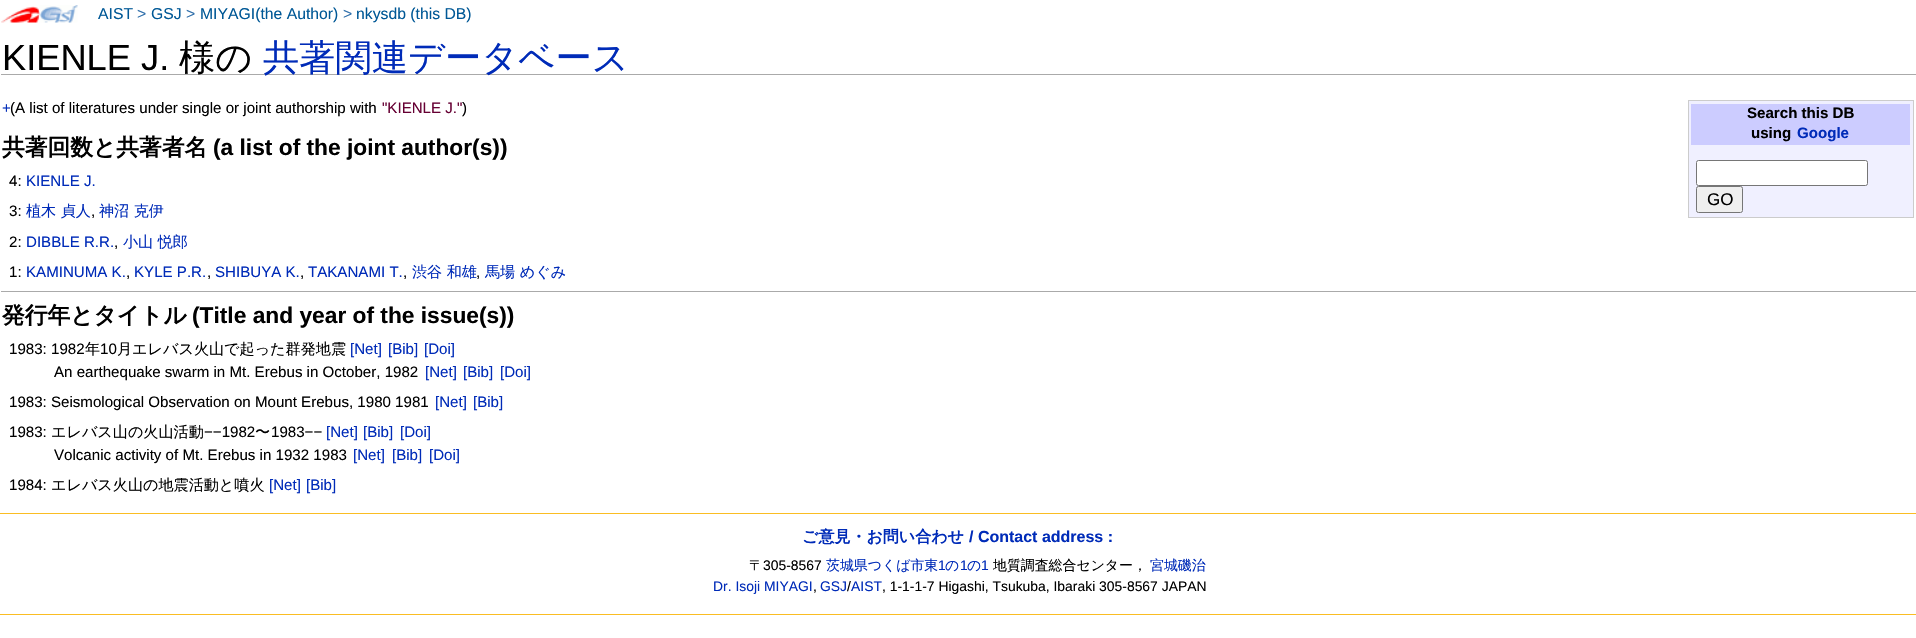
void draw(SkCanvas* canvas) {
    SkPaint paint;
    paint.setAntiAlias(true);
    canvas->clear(0xFFFFFFFF);
    canvas->drawImageRect(SkImages::DeferredFromEncodedData(SkData::MakeFromFileName("img1.png")), SkRect::MakeXYWH(1, 5, 77, 18), SkSamplingOptions());
    SkFont font1(fontMgr->matchFamilyStyle("Liberation Sans", SkFontStyle::Normal()), 15.75f);
    font1.setSubpixel(true);
    paint.setColor(0xFF005896);
    canvas->drawString("AIST", 98, 19, font1, paint);
    paint.setColor(0xFF2F6FAB);
    canvas->drawString(">", 137, 19, font1, paint);
    paint.setColor(0xFF005896);
    canvas->drawString("GSJ", 151, 19, font1, paint);
    paint.setColor(0xFF2F6FAB);
    canvas->drawString(">", 186, 19, font1, paint);
    paint.setColor(0xFF005896);
    canvas->drawString("MIYAGI(the Author)", 200, 19, font1, paint);
    paint.setColor(0xFF2F6FAB);
    canvas->drawString(">", 343, 19, font1, paint);
    paint.setColor(0xFF005896);
    canvas->drawString("nkysdb (this DB)", 356, 19, font1, paint);
    paint.setColor(0xFFAAAAAA);
    canvas->drawRect(SkRect::MakeXYWH(1, 74, 1915, 1), paint);
    SkFont font2(fontMgr->matchFamilyStyle("Liberation Sans", SkFontStyle::Normal()), 36.25f);
    font2.setSubpixel(true);
    paint.setColor(0xFF000000);
    canvas->drawString("KIENLE J.", 2, 70, font2, paint);
    SkFont font3(fontMgr->matchFamilyStyle("WenQuanYi Zen Hei", SkFontStyle(500, SkFontStyle::kNormal_Width, SkFontStyle::kUpright_Slant)), 36.25f);
    font3.setSubpixel(true);
    canvas->drawString("様の", 179, 70, font3, paint);
    paint.setColor(0xFF002BB8);
    canvas->drawString("共著関連データベース", 263, 70, font3, paint);
    SkFont font4(fontMgr->matchFamilyStyle("Liberation Sans", SkFontStyle::Normal()), 15.1f);
    font4.setSubpixel(true);
    canvas->drawString("+", 2, 113, font4, paint);
    paint.setColor(0xFF000000);
    canvas->drawString("(A list of literatures under single or joint authorship with", 10, 113, font4, paint);
    paint.setColor(0xFF660033);
    canvas->drawString("\"KIENLE J.\"", 382, 113, font4, paint);
    paint.setColor(0xFF000000);
    canvas->drawString(")", 462, 113, font4, paint);
    paint.setColor(0xFFF0F0FF);
    canvas->drawRect(SkRect::MakeXYWH(1688.5f, 100.5f, 225, 117), paint);
    paint.setStyle(SkPaint::kStroke_Style);
    paint.setStrokeWidth(1);
    paint.setColor(0xFFCCCCCC);
    canvas->drawRect(SkRect::MakeXYWH(1688.5f, 100.5f, 225, 117), paint);
    paint.setStyle(SkPaint::kFill_Style);
    paint.setColor(0xFFCCCCFF);
    canvas->drawRect(SkRect::MakeXYWH(1691, 104, 219, 41), paint);
    SkFont font5(fontMgr->matchFamilyStyle("Liberation Sans", SkFontStyle::Bold()), 15.1f);
    font5.setSubpixel(true);
    paint.setColor(0xFF000000);
    canvas->drawString("Search this DB", 1747, 118, font5, paint);
    canvas->drawString("using", 1751, 138, font5, paint);
    paint.setColor(0xFF002BB8);
    canvas->drawString("Google", 1797, 138, font5, paint);
    paint.setColor(0xFFFFFFFF);
    canvas->drawRoundRect(SkRect::MakeXYWH(1696.5f, 160.5f, 171, 25), 2, 2, paint);
    paint.setStyle(SkPaint::kStroke_Style);
    paint.setColor(0xFF767676);
    canvas->drawRoundRect(SkRect::MakeXYWH(1696.5f, 160.5f, 171, 25), 2, 2, paint);
    paint.setStyle(SkPaint::kFill_Style);
    paint.setColor(0xFFEFEFEF);
    canvas->drawRoundRect(SkRect::MakeXYWH(1696.5f, 186.5f, 46, 26), 2, 2, paint);
    paint.setStyle(SkPaint::kStroke_Style);
    paint.setColor(0xFF767676);
    canvas->drawRoundRect(SkRect::MakeXYWH(1696.5f, 186.5f, 46, 26), 2, 2, paint);
    SkFont font6(fontMgr->matchFamilyStyle("Liberation Sans", SkFontStyle::Normal()), 17);
    font6.setSubpixel(true);
    paint.setStyle(SkPaint::kFill_Style);
    paint.setColor(0xFF000000);
    canvas->drawString("GO", 1707, 205, font6, paint);
    SkFont font7(fontMgr->matchFamilyStyle("WenQuanYi Zen Hei", SkFontStyle::Bold()), 22.75f);
    font7.setSubpixel(true);
    canvas->drawString("共著回数と共著者名", 2, 155, font7, paint);
    SkFont font8(fontMgr->matchFamilyStyle("Liberation Sans", SkFontStyle::Bold()), 22.75f);
    font8.setSubpixel(true);
    canvas->drawString("(a list of the joint author(s))", 213, 155, font8, paint);
    canvas->drawString("4:", 9, 186, font4, paint);
    paint.setColor(0xFF002BB8);
    canvas->drawString("KIENLE J.", 26, 186, font4, paint);
    paint.setColor(0xFF000000);
    canvas->drawString("3:", 9, 216, font4, paint);
    SkFont font9(fontMgr->matchFamilyStyle("WenQuanYi Zen Hei", SkFontStyle(500, SkFontStyle::kNormal_Width, SkFontStyle::kUpright_Slant)), 15.1f);
    font9.setSubpixel(true);
    paint.setColor(0xFF002BB8);
    canvas->drawString("植木 貞人", 26, 216, font9, paint);
    paint.setColor(0xFF000000);
    canvas->drawString(",", 91, 216, font4, paint);
    paint.setColor(0xFF002BB8);
    canvas->drawString("神沼 克伊", 99, 216, font9, paint);
    paint.setColor(0xFF000000);
    canvas->drawString("2:", 9, 247, font4, paint);
    paint.setColor(0xFF002BB8);
    canvas->drawString("DIBBLE R.R.", 26, 247, font4, paint);
    paint.setColor(0xFF000000);
    canvas->drawString(",", 114, 247, font4, paint);
    paint.setColor(0xFF002BB8);
    canvas->drawString("小山 悦郎", 123, 247, font9, paint);
    paint.setColor(0xFF000000);
    canvas->drawString("1:", 9, 277, font4, paint);
    paint.setColor(0xFF002BB8);
    canvas->drawString("KAMINUMA K.", 26, 277, font4, paint);
    paint.setColor(0xFF000000);
    canvas->drawString(",", 126, 277, font4, paint);
    paint.setColor(0xFF002BB8);
    canvas->drawString("KYLE P.R.", 134, 277, font4, paint);
    paint.setColor(0xFF000000);
    canvas->drawString(",", 207, 277, font4, paint);
    paint.setColor(0xFF002BB8);
    canvas->drawString("SHIBUYA K.", 215, 277, font4, paint);
    paint.setColor(0xFF000000);
    canvas->drawString(",", 300, 277, font4, paint);
    paint.setColor(0xFF002BB8);
    canvas->drawString("TAKANAMI T.", 308, 277, font4, paint);
    paint.setColor(0xFF000000);
    canvas->drawString(",", 403, 277, font4, paint);
    paint.setColor(0xFF002BB8);
    canvas->drawString("渋谷 和雄", 412, 277, font9, paint);
    paint.setColor(0xFF000000);
    canvas->drawString(",", 476, 277, font4, paint);
    paint.setColor(0xFF002BB8);
    canvas->drawString("馬場 めぐみ", 485, 277, font9, paint);
    paint.setColor(0xFFAAAAAA);
    canvas->drawRect(SkRect::MakeXYWH(1, 291, 1915, 1), paint);
    paint.setColor(0xFF000000);
    canvas->drawString("発行年とタイトル", 2, 323, font7, paint);
    canvas->drawString("(Title and year of the issue(s))", 192, 323, font8, paint);
    canvas->drawString("1983: 1982", 9, 354, font4, paint);
    canvas->drawString("年", 85, 354, font9, paint);
    canvas->drawString("10", 100, 354, font4, paint);
    canvas->drawString("月エレバス火山で起った群発地震", 117, 354, font9, paint);
    paint.setColor(0xFF002BB8);
    canvas->drawString("[Net]", 350, 354, font4, paint);
    canvas->drawString("[Bib]", 388, 354, font4, paint);
    canvas->drawString("[Doi]", 424, 354, font4, paint);
    paint.setColor(0xFF000000);
    canvas->drawString("An earthequake swarm in Mt. Erebus in October, 1982", 54, 377, font4, paint);
    paint.setColor(0xFF002BB8);
    canvas->drawString("[Net]", 425, 377, font4, paint);
    canvas->drawString("[Bib]", 463, 377, font4, paint);
    canvas->drawString("[Doi]", 500, 377, font4, paint);
    paint.setColor(0xFF000000);
    canvas->drawString("1983: Seismological Observation on Mount Erebus, 1980 1981", 9, 407, font4, paint);
    paint.setColor(0xFF002BB8);
    canvas->drawString("[Net]", 435, 407, font4, paint);
    canvas->drawString("[Bib]", 473, 407, font4, paint);
    paint.setColor(0xFF000000);
    canvas->drawString("1983:", 9, 437, font4, paint);
    canvas->drawString("エレバス山の火山活動", 51, 437, font9, paint);
    canvas->drawString("−−1982", 204, 437, font4, paint);
    canvas->drawString("〜", 255, 437, font9, paint);
    canvas->drawString("1983−−", 271, 437, font4, paint);
    paint.setColor(0xFF002BB8);
    canvas->drawString("[Net]", 326, 437, font4, paint);
    canvas->drawString("[Bib]", 363, 437, font4, paint);
    canvas->drawString("[Doi]", 400, 437, font4, paint);
    paint.setColor(0xFF000000);
    canvas->drawString("Volcanic activity of Mt. Erebus in 1932 1983", 54, 460, font4, paint);
    paint.setColor(0xFF002BB8);
    canvas->drawString("[Net]", 353, 460, font4, paint);
    canvas->drawString("[Bib]", 392, 460, font4, paint);
    canvas->drawString("[Doi]", 429, 460, font4, paint);
    paint.setColor(0xFF000000);
    canvas->drawString("1984:", 9, 490, font4, paint);
    canvas->drawString("エレバス火山の地震活動と噴火", 51, 490, font9, paint);
    paint.setColor(0xFF002BB8);
    canvas->drawString("[Net]", 269, 490, font4, paint);
    canvas->drawString("[Bib]", 306, 490, font4, paint);
    paint.setColor(0xFFFABD23);
    canvas->drawRect(SkRect::MakeXYWH(0, 513, 1916, 1), paint);
    canvas->drawRect(SkRect::MakeXYWH(0, 614, 1916, 1), paint);
    SkFont font10(fontMgr->matchFamilyStyle("WenQuanYi Zen Hei", SkFontStyle::Bold()), 16);
    font10.setSubpixel(true);
    paint.setColor(0xFF002BB8);
    canvas->drawString("ご意見・お問い合わせ", 802, 542, font10, paint);
    SkFont font11(fontMgr->matchFamilyStyle("Liberation Sans", SkFontStyle::Bold()), 16);
    font11.setSubpixel(true);
    canvas->drawString("/ Contact address :", 969, 542, font11, paint);
    SkFont font12(fontMgr->matchFamilyStyle("WenQuanYi Zen Hei", SkFontStyle(500, SkFontStyle::kNormal_Width, SkFontStyle::kUpright_Slant)), 13.9f);
    font12.setSubpixel(true);
    paint.setColor(0xFF000000);
    canvas->drawString("〒", 749, 570, font12, paint);
    SkFont font13(fontMgr->matchFamilyStyle("Liberation Sans", SkFontStyle::Normal()), 13.9f);
    font13.setSubpixel(true);
    canvas->drawString("305-8567", 763, 570, font13, paint);
    paint.setColor(0xFF002BB8);
    canvas->drawString("茨城県つくば市東", 826, 570, font12, paint);
    canvas->drawString("1", 938, 570, font13, paint);
    canvas->drawString("の", 945, 570, font12, paint);
    canvas->drawString("1", 960, 570, font13, paint);
    canvas->drawString("の", 967, 570, font12, paint);
    canvas->drawString("1", 981, 570, font13, paint);
    paint.setColor(0xFF000000);
    canvas->drawString("地質調査総合センター，", 993, 570, font12, paint);
    paint.setColor(0xFF002BB8);
    canvas->drawString("宮城磯治", 1150, 570, font12, paint);
    canvas->drawString("Dr. Isoji MIYAGI", 713, 591, font13, paint);
    paint.setColor(0xFF000000);
    canvas->drawString(",", 813, 591, font13, paint);
    paint.setColor(0xFF002BB8);
    canvas->drawString("GSJ", 820, 591, font13, paint);
    paint.setColor(0xFF000000);
    canvas->drawString("/", 847, 591, font13, paint);
    paint.setColor(0xFF002BB8);
    canvas->drawString("AIST", 851, 591, font13, paint);
    paint.setColor(0xFF000000);
    canvas->drawString(", 1-1-1-7 Higashi, Tsukuba, Ibaraki 305-8567 JAPAN", 882, 591, font13, paint);
}
